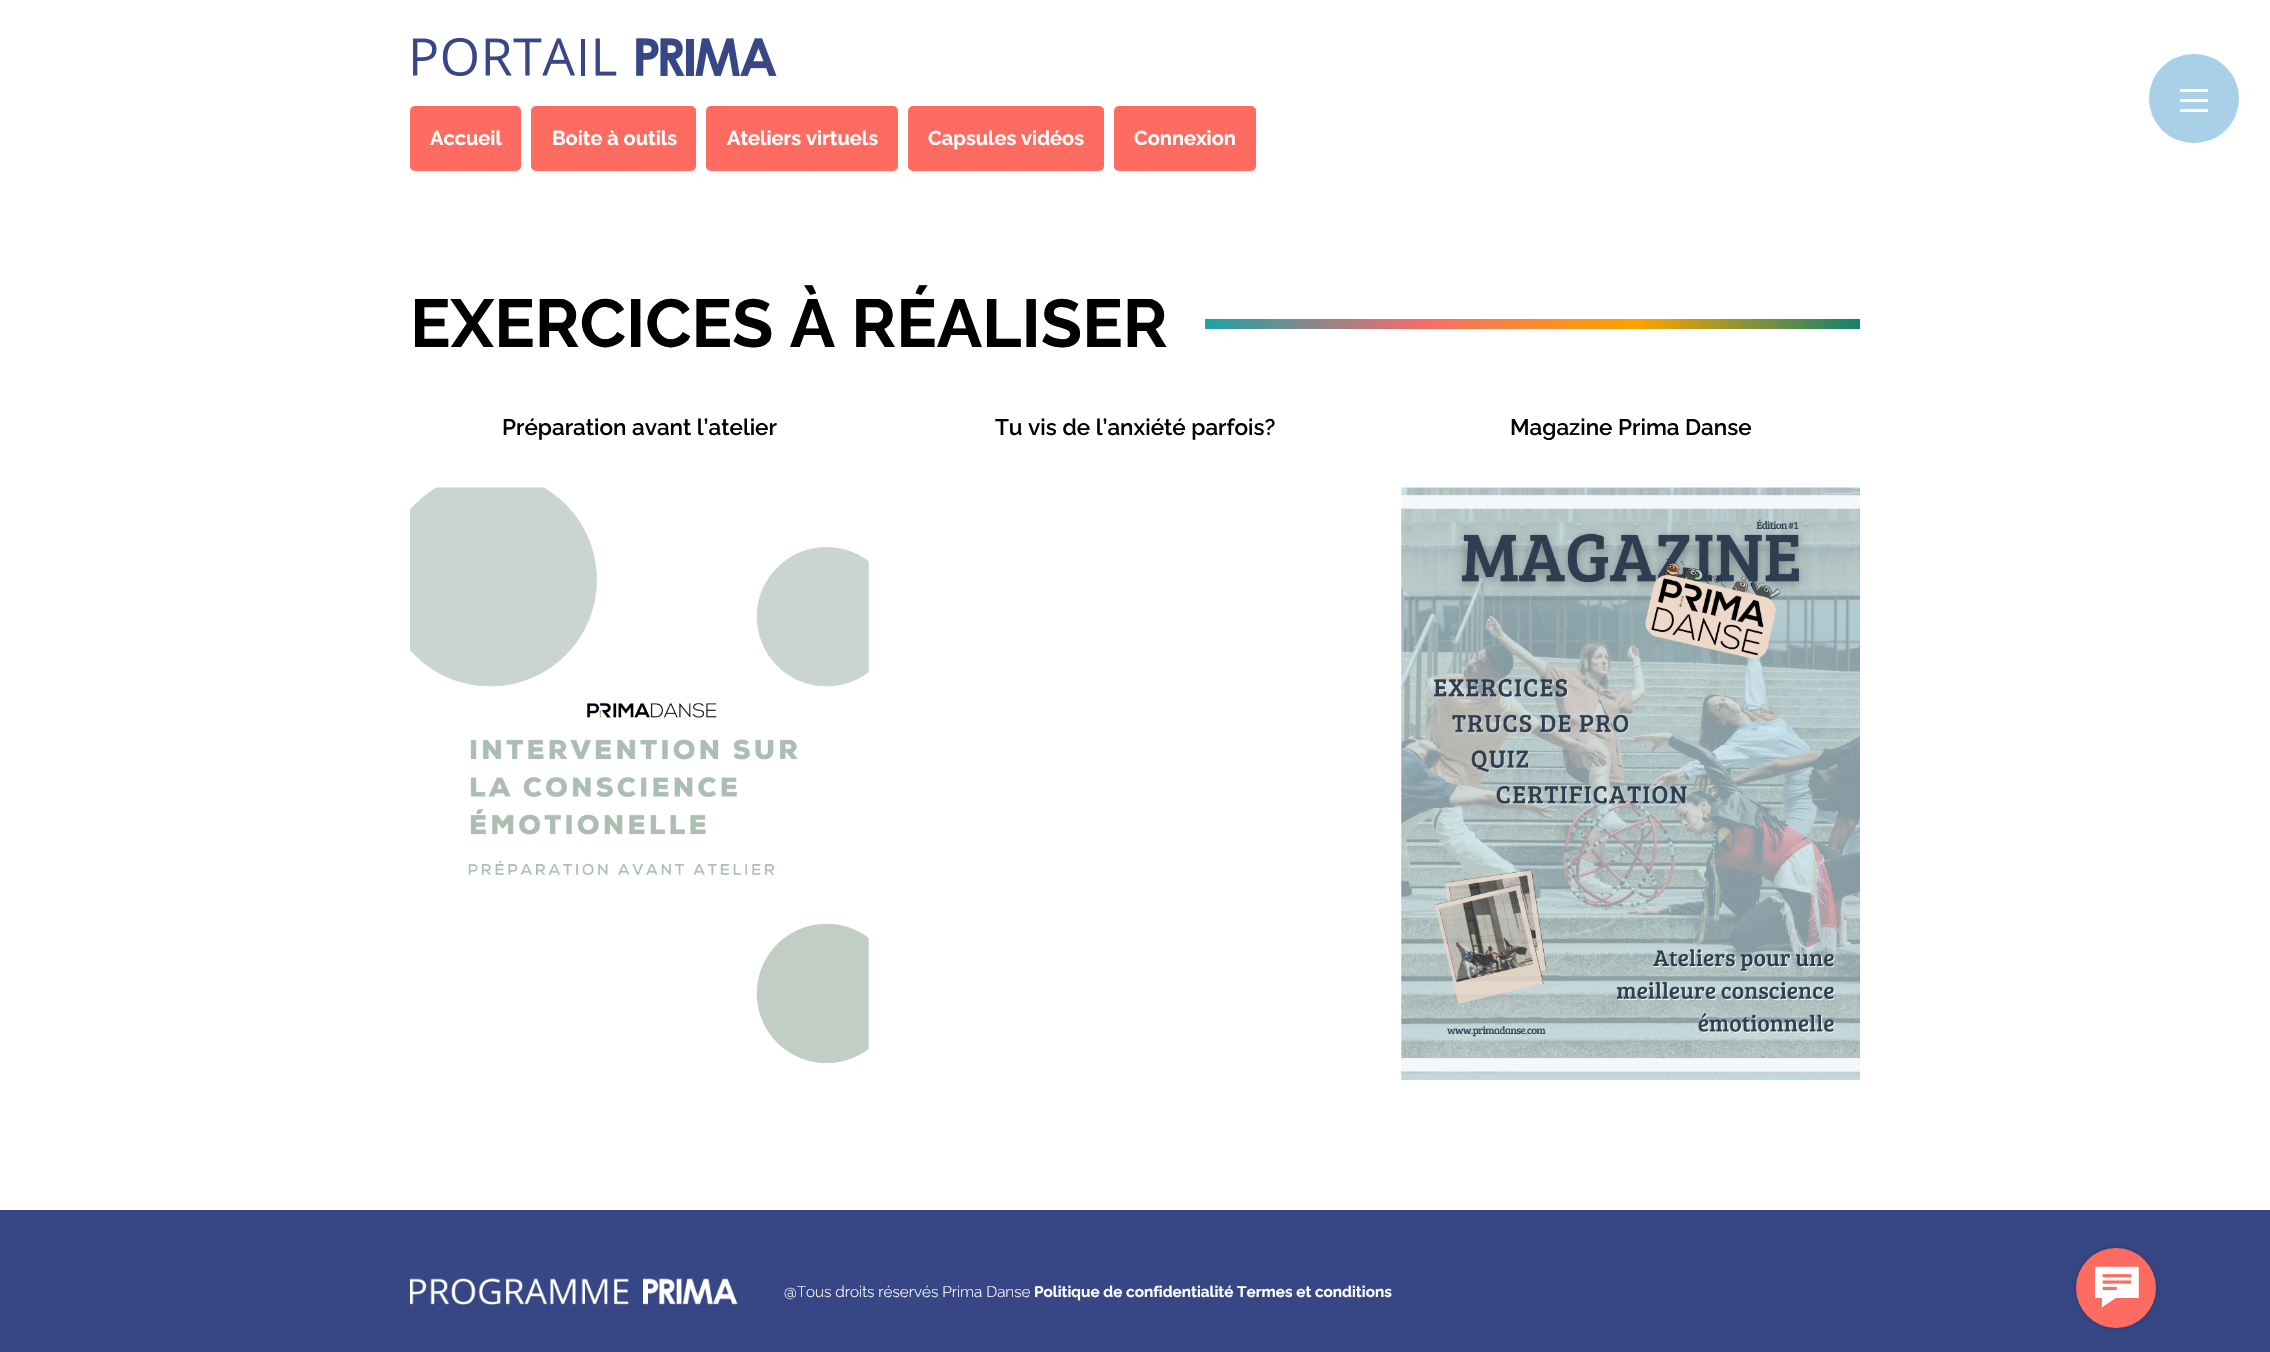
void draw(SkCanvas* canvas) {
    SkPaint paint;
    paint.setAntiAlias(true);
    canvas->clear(0xFFFFFFFF);
    canvas->drawImageRect(SkImages::DeferredFromEncodedData(SkData::MakeFromFileName("img1.png")), SkRect::MakeXYWH(413, 38, 364, 38), SkSamplingOptions());
    paint.setColor(0xFFFE6C61);
    canvas->drawRoundRect(SkRect::MakeXYWH(410, 106, 111, 65), 5, 5, paint);
    SkFont font1(fontMgr->matchFamilyStyle("Raleway", SkFontStyle::Bold()), 20);
    font1.setSubpixel(true);
    paint.setColor(0xFFFFFFFF);
    canvas->drawString("Accueil", 430, 145, font1, paint);
    paint.setColor(0xFFFE6C61);
    canvas->drawRoundRect(SkRect::MakeXYWH(531, 106, 165, 65), 5, 5, paint);
    paint.setColor(0xFFFFFFFF);
    canvas->drawString("Boite à outils", 552, 145, font1, paint);
    paint.setColor(0xFFFE6C61);
    canvas->drawRoundRect(SkRect::MakeXYWH(706, 106, 192, 65), 5, 5, paint);
    paint.setColor(0xFFFFFFFF);
    canvas->drawString("Ateliers virtuels", 727, 145, font1, paint);
    paint.setColor(0xFFFE6C61);
    canvas->drawRoundRect(SkRect::MakeXYWH(908, 106, 196, 65), 5, 5, paint);
    paint.setColor(0xFFFFFFFF);
    canvas->drawString("Capsules vidéos", 928, 145, font1, paint);
    paint.setColor(0xFFFE6C61);
    canvas->drawRoundRect(SkRect::MakeXYWH(1114, 106, 142, 65), 5, 5, paint);
    paint.setColor(0xFFFFFFFF);
    canvas->drawString("Connexion", 1134, 145, font1, paint);
    paint.setColor(0xFFA8D0E7);
    canvas->drawRoundRect(SkRect::MakeXYWH(2149, 54, 90, 89), 44.5f, 44.5f, paint);
    paint.setColor(0xFFFFFFFF);
    canvas->drawRect(SkRect::MakeXYWH(2180, 109, 28, 3), paint);
    canvas->drawRect(SkRect::MakeXYWH(2180, 89, 28, 3), paint);
    canvas->drawRect(SkRect::MakeXYWH(2180, 99, 28, 3), paint);
    SkFont font2(fontMgr->matchFamilyStyle("Raleway", SkFontStyle::Bold()), 67.5f);
    font2.setSubpixel(true);
    paint.setColor(0xFF000000);
    canvas->drawString("EXERCICES À RÉALISER", 410, 347, font2, paint);
    {
        const SkColor colors[] = {0xFF1EA1A8, 0xFFF26E6B, 0xFFFDA300, 0xFF13816C};
        const float stops[] = {0, 0.33f, 0.66f, 1};
        const SkPoint ends[] = {{1205, 324}, {1860, 324}};
        paint.setShader(SkGradientShader::MakeLinear(ends, colors, stops, 4, SkTileMode::kClamp));
        paint.setAlpha(255);
    }
    canvas->drawRect(SkRect::MakeXYWH(1205, 319, 655, 10), paint);
    SkFont font3(fontMgr->matchFamilyStyle("Raleway", SkFontStyle(600, SkFontStyle::kNormal_Width, SkFontStyle::kUpright_Slant)), 22.5f);
    font3.setSubpixel(true);
    paint.setShader(nullptr);
    paint.setColor(0xFF000000);
    canvas->drawString("Préparation avant l’atelier", 502, 435, font3, paint);
    canvas->drawImageRect(SkImages::DeferredFromEncodedData(SkData::MakeFromFileName("img2.png")), SkRect::MakeXYWH(410, 487, 459, 577), SkSamplingOptions());
    canvas->drawString("Tu vis de l’anxiété parfois?", 995, 435, font3, paint);
    canvas->drawString("Magazine Prima Danse", 1510, 435, font3, paint);
    canvas->drawImageRect(SkImages::DeferredFromEncodedData(SkData::MakeFromFileName("img3.png")), SkRect::MakeXYWH(1401, 487, 459, 593), SkSamplingOptions());
    paint.setColor(0xFF374785);
    canvas->drawRect(SkRect::MakeXYWH(0, 1211, 2270, 141), paint);
    paint.setColor(0xFF34437E);
    canvas->drawRect(SkRect::MakeXYWH(0, 1210, 2270, 1), paint);
    canvas->drawImageRect(SkImages::DeferredFromEncodedData(SkData::MakeFromFileName("img4.png")), SkRect::MakeXYWH(410, 1278, 328, 27), SkSamplingOptions());
    SkFont font4(fontMgr->matchFamilyStyle("Raleway", SkFontStyle(300, SkFontStyle::kNormal_Width, SkFontStyle::kUpright_Slant)), 15.3f);
    font4.setSubpixel(true);
    paint.setColor(0xFFFFFFFF);
    canvas->drawString("@Tous droits réservés Prima Danse", 784, 1297, font4, paint);
    SkFont font5(fontMgr->matchFamilyStyle("Raleway", SkFontStyle::Bold()), 15.3f);
    font5.setSubpixel(true);
    canvas->drawString("Politique de confidentialité Termes et conditions", 1034, 1297, font5, paint);
    paint.setColor(0x33000000);
    paint.setMaskFilter(SkMaskFilter::MakeBlur(kNormal_SkBlurStyle, 3));
    canvas->drawRoundRect(SkRect::MakeXYWH(2076, 1248, 80, 80), 40, 40, paint);
    paint.setMaskFilter(nullptr);
    paint.setColor(0xFFFE6C61);
    canvas->drawCircle(2116, 1288, 40, paint);
    canvas->drawImageRect(SkImages::DeferredFromEncodedData(SkData::MakeFromFileName("img5.png")), SkRect::MakeXYWH(2095, 1266, 44, 42), SkSamplingOptions());
}
